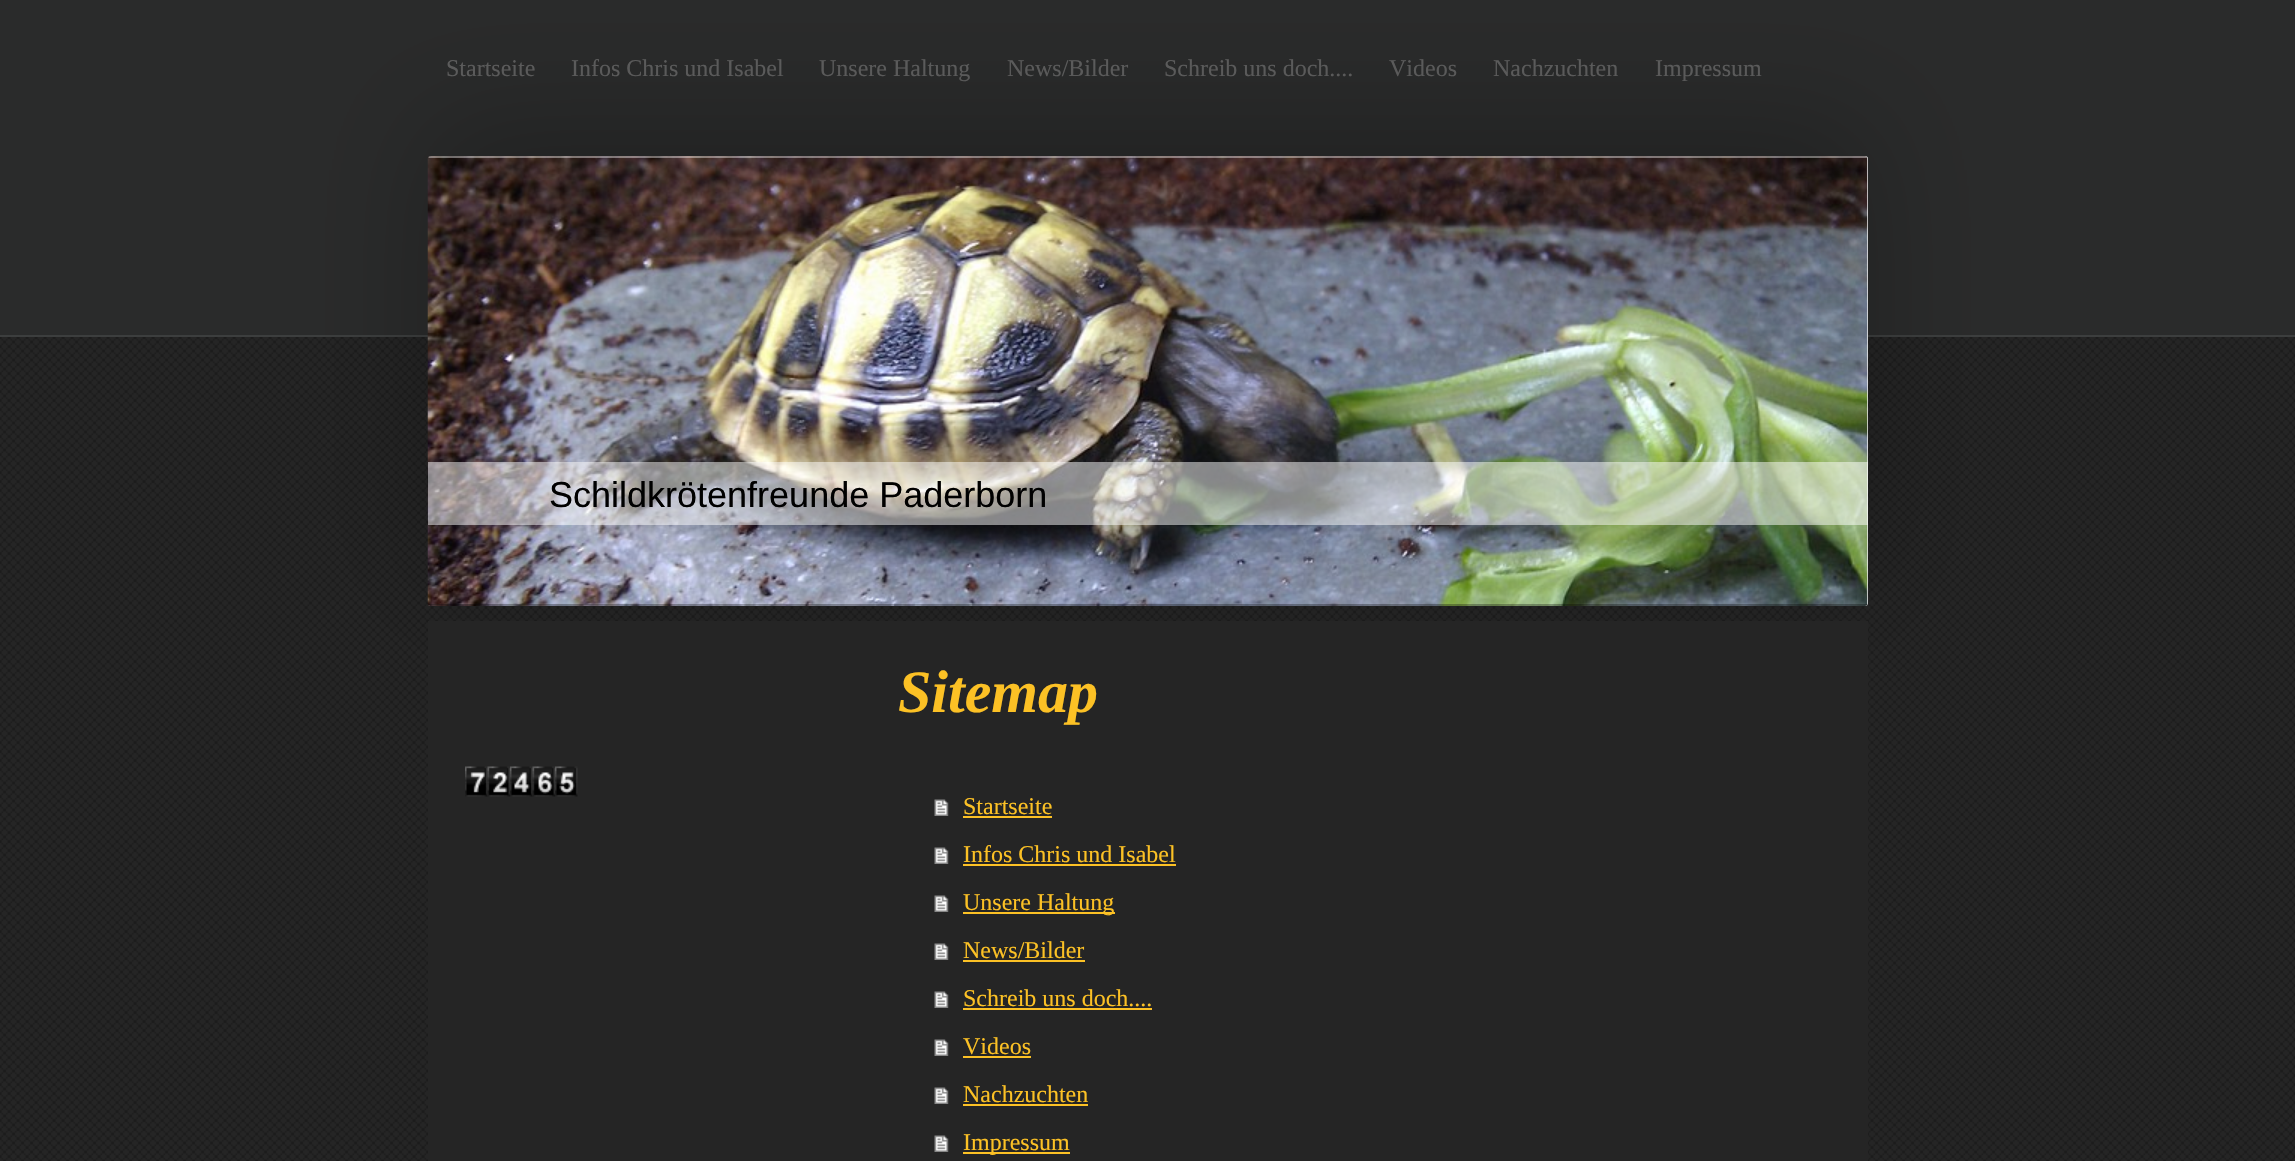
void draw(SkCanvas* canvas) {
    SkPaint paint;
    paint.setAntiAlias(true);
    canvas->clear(0xFF252525);
    canvas->drawImageRect(SkImages::DeferredFromEncodedData(SkData::MakeFromFileName("img1.png")), SkRect::MakeXYWH(0, 337, 2295, 824), SkSamplingOptions());
    paint.setColor(0xFF2A2B2B);
    canvas->drawRect(SkRect::MakeXYWH(0, 0, 2295, 335), paint);
    paint.setColor(0xFF3C3E3E);
    canvas->drawRect(SkRect::MakeXYWH(0, 335, 2295, 2), paint);
    SkFont font1(fontMgr->matchFamilyStyle("Liberation Serif", SkFontStyle::Normal()), 24);
    font1.setSubpixel(true);
    paint.setColor(0xFF5E5E5E);
    canvas->drawString("Startseite", 446, 76, font1, paint);
    canvas->drawString("Infos Chris und Isabel", 571, 76, font1, paint);
    canvas->drawString("Unsere Haltung", 819, 76, font1, paint);
    canvas->drawString("News/Bilder", 1007, 76, font1, paint);
    canvas->drawString("Schreib uns doch....", 1164, 76, font1, paint);
    canvas->drawString("Videos", 1389, 76, font1, paint);
    canvas->drawString("Nachzuchten", 1493, 76, font1, paint);
    canvas->drawString("Impressum", 1655, 76, font1, paint);
    paint.setColor(0x3D000000);
    paint.setMaskFilter(SkMaskFilter::MakeBlur(kNormal_SkBlurStyle, 60));
    canvas->drawRoundRect(SkRect::MakeXYWH(428, 126, 1440, 450), 3, 3, paint);
    paint.setMaskFilter(nullptr);
    paint.setColor(0xFFEEEEEE);
    canvas->drawRoundRect(SkRect::MakeXYWH(428, 156, 1440, 450), 3, 3, paint);
    canvas->drawImageRect(SkImages::DeferredFromEncodedData(SkData::MakeFromFileName("img2.png")), SkRect::MakeXYWH(427, 156, 1441, 450), SkSamplingOptions());
    canvas->save();
    canvas->clipPath(SkPathBuilder().moveTo(431, 156).lineTo(1865, 156).cubicTo(1866.5f, 156, 1868, 157.5f, 1868, 159).lineTo(1868, 603).cubicTo(1868, 604.5f, 1866.5f, 606, 1865, 606).lineTo(431, 606).cubicTo(429.5f, 606, 428, 604.5f, 428, 603).lineTo(428, 159).cubicTo(428, 157.5f, 429.5f, 156, 431, 156).close().detach(), true);
    paint.setColor(0x66FFFFFF);
    canvas->drawRect(SkRect::MakeXYWH(428, 156, 1440, 2), paint);
    canvas->restore();
    paint.setColor(0x4D000000);
    canvas->drawPath(SkPathBuilder().moveTo(428, 604).cubicTo(429, 605, 430, 606, 431, 606).lineTo(1865, 606).cubicTo(1866, 606, 1867, 605, 1868, 604).close().detach(), paint);
    paint.setColor(0x80FFFFFF);
    canvas->drawRect(SkRect::MakeXYWH(428, 462, 1440, 63), paint);
    SkFont font2(fontMgr->matchFamilyStyle("Liberation Sans", SkFontStyle::Normal()), 36);
    font2.setSubpixel(true);
    paint.setColor(0xFF000000);
    canvas->drawString("Schildkrötenfreunde Paderborn", 549, 507, font2, paint);
    paint.setColor(0xFF252525);
    canvas->drawRect(SkRect::MakeXYWH(428, 621, 1440, 540), paint);
    canvas->drawImageRect(SkImages::DeferredFromEncodedData(SkData::MakeFromFileName("img3.png")), SkRect::MakeXYWH(465, 766, 23, 31), SkSamplingOptions());
    canvas->drawImageRect(SkImages::DeferredFromEncodedData(SkData::MakeFromFileName("img4.png")), SkRect::MakeXYWH(487, 766, 23, 31), SkSamplingOptions());
    canvas->drawImageRect(SkImages::DeferredFromEncodedData(SkData::MakeFromFileName("img5.png")), SkRect::MakeXYWH(510, 766, 23, 31), SkSamplingOptions());
    canvas->drawImageRect(SkImages::DeferredFromEncodedData(SkData::MakeFromFileName("img6.png")), SkRect::MakeXYWH(532, 766, 23, 31), SkSamplingOptions());
    canvas->drawImageRect(SkImages::DeferredFromEncodedData(SkData::MakeFromFileName("img7.png")), SkRect::MakeXYWH(555, 766, 23, 31), SkSamplingOptions());
    SkFont font3(fontMgr->matchFamilyStyle("Liberation Serif", SkFontStyle::BoldItalic()), 60);
    font3.setSubpixel(true);
    paint.setColor(0xFFFCC125);
    canvas->drawString("Sitemap", 898, 712, font3, paint);
    canvas->drawImageRect(SkImages::DeferredFromEncodedData(SkData::MakeFromFileName("img8.png")), SkRect::MakeXYWH(934, 799, 15, 17), SkSamplingOptions());
    canvas->drawString("Startseite", 963, 814, font1, paint);
    canvas->drawRect(SkRect::MakeXYWH(963, 816, 89, 2), paint);
    canvas->drawImageRect(SkImages::DeferredFromEncodedData(SkData::MakeFromFileName("img8.png")), SkRect::MakeXYWH(934, 847, 15, 17), SkSamplingOptions());
    canvas->drawString("Infos Chris und Isabel", 963, 862, font1, paint);
    canvas->drawRect(SkRect::MakeXYWH(963, 864, 213, 2), paint);
    canvas->drawImageRect(SkImages::DeferredFromEncodedData(SkData::MakeFromFileName("img8.png")), SkRect::MakeXYWH(934, 895, 15, 17), SkSamplingOptions());
    canvas->drawRect(SkRect::MakeXYWH(963, 912, 152, 2), paint);
    canvas->drawString("Unsere Haltung", 963, 910, font1, paint);
    canvas->drawImageRect(SkImages::DeferredFromEncodedData(SkData::MakeFromFileName("img8.png")), SkRect::MakeXYWH(934, 943, 15, 17), SkSamplingOptions());
    canvas->drawString("News/Bilder", 963, 958, font1, paint);
    canvas->drawRect(SkRect::MakeXYWH(963, 960, 122, 2), paint);
    canvas->drawImageRect(SkImages::DeferredFromEncodedData(SkData::MakeFromFileName("img8.png")), SkRect::MakeXYWH(934, 991, 15, 17), SkSamplingOptions());
    canvas->drawString("Schreib uns doch....", 963, 1006, font1, paint);
    canvas->drawRect(SkRect::MakeXYWH(963, 1008, 189, 2), paint);
    canvas->drawImageRect(SkImages::DeferredFromEncodedData(SkData::MakeFromFileName("img8.png")), SkRect::MakeXYWH(934, 1039, 15, 17), SkSamplingOptions());
    canvas->drawString("Videos", 963, 1054, font1, paint);
    canvas->drawRect(SkRect::MakeXYWH(963, 1056, 68, 2), paint);
    canvas->drawImageRect(SkImages::DeferredFromEncodedData(SkData::MakeFromFileName("img8.png")), SkRect::MakeXYWH(934, 1087, 15, 17), SkSamplingOptions());
    canvas->drawString("Nachzuchten", 963, 1102, font1, paint);
    canvas->drawRect(SkRect::MakeXYWH(963, 1104, 125, 2), paint);
    canvas->drawImageRect(SkImages::DeferredFromEncodedData(SkData::MakeFromFileName("img8.png")), SkRect::MakeXYWH(934, 1135, 15, 17), SkSamplingOptions());
    canvas->drawRect(SkRect::MakeXYWH(963, 1152, 107, 2), paint);
    canvas->drawString("Impressum", 963, 1150, font1, paint);
}
